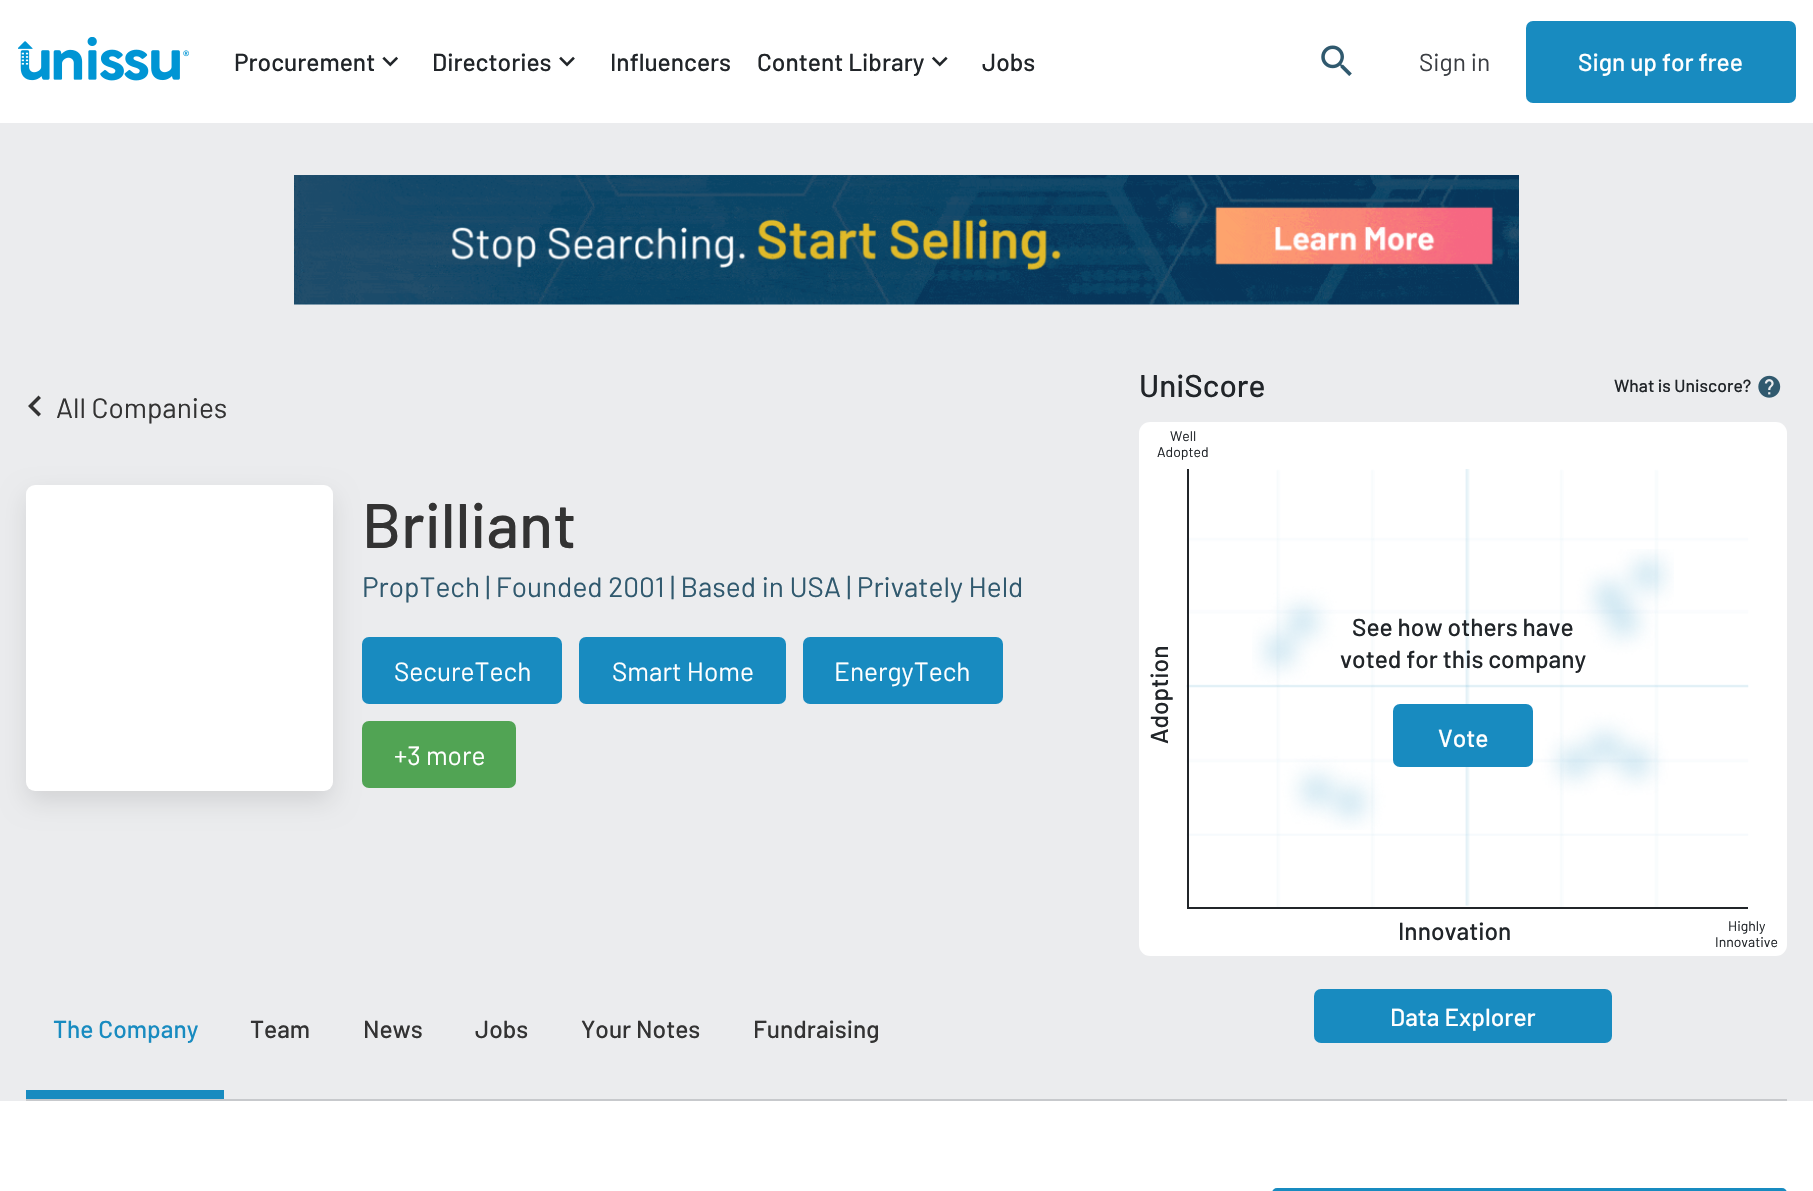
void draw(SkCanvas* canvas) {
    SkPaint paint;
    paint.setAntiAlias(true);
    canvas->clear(0xFFFFFFFF);
    canvas->drawImageRect(SkImages::DeferredFromEncodedData(SkData::MakeFromFileName("img1.png")), SkRect::MakeXYWH(18, 37, 171, 44), SkSamplingOptions());
    SkFont font1(fontMgr->matchFamilyStyle("Barlow", SkFontStyle(500, SkFontStyle::kNormal_Width, SkFontStyle::kUpright_Slant)), 24.5f);
    font1.setSubpixel(true);
    paint.setColor(0xFF212529);
    canvas->drawString("Procurement", 234, 71, font1, paint);
    canvas->drawImageRect(SkImages::DeferredFromEncodedData(SkData::MakeFromFileName("img2.png")), SkRect::MakeXYWH(382, 56, 16, 11), SkSamplingOptions());
    canvas->drawString("Directories", 432, 71, font1, paint);
    canvas->drawImageRect(SkImages::DeferredFromEncodedData(SkData::MakeFromFileName("img3.png")), SkRect::MakeXYWH(559, 56, 16, 11), SkSamplingOptions());
    canvas->drawString("Influencers", 610, 71, font1, paint);
    canvas->drawString("Content Library", 757, 71, font1, paint);
    canvas->drawImageRect(SkImages::DeferredFromEncodedData(SkData::MakeFromFileName("img4.png")), SkRect::MakeXYWH(932, 56, 16, 11), SkSamplingOptions());
    canvas->drawString("Jobs", 982, 71, font1, paint);
    canvas->drawImageRect(SkImages::DeferredFromEncodedData(SkData::MakeFromFileName("img5.png")), SkRect::MakeXYWH(1321, 45, 31, 31), SkSamplingOptions());
    SkFont font2(fontMgr->matchFamilyStyle("Barlow", SkFontStyle::Normal()), 24.5f);
    font2.setSubpixel(true);
    paint.setColor(0xFF3B3E43);
    canvas->drawString("Sign in", 1419, 71, font2, paint);
    paint.setColor(0xFF188BC0);
    canvas->drawRoundRect(SkRect::MakeXYWH(1526, 21, 270, 82), 7, 7, paint);
    paint.setColor(0xFFFFFFFF);
    canvas->drawString("Sign up for free", 1578, 71, font1, paint);
    paint.setColor(0xFFEBECEE);
    canvas->drawRect(SkRect::MakeXYWH(0, 123, 1813, 978), paint);
    canvas->drawImageRect(SkImages::DeferredFromEncodedData(SkData::MakeFromFileName("img6.png")), SkRect::MakeXYWH(294, 175, 1225, 130), SkSamplingOptions());
    paint.setColor(0xFF333333);
    canvas->drawPath(SkPathBuilder().moveTo(41, 398).lineTo(33, 406).lineTo(41, 414).lineTo(38.5f, 416.5f).lineTo(28, 406).lineTo(38.5f, 395.5f).close().detach(), paint);
    SkFont font3(fontMgr->matchFamilyStyle("Barlow", SkFontStyle::Normal()), 28);
    font3.setSubpixel(true);
    canvas->drawString("All Companies", 56, 418, font3, paint);
    paint.setColor(0x1A000000);
    paint.setMaskFilter(SkMaskFilter::MakeBlur(kNormal_SkBlurStyle, 12));
    canvas->drawRoundRect(SkRect::MakeXYWH(26, 495, 307, 307), 9, 9, paint);
    paint.setMaskFilter(nullptr);
    paint.setColor(0xFFFFFFFF);
    canvas->drawRoundRect(SkRect::MakeXYWH(26, 485, 307, 306), 9, 9, paint);
    SkFont font4(fontMgr->matchFamilyStyle("Barlow", SkFontStyle(500, SkFontStyle::kNormal_Width, SkFontStyle::kUpright_Slant)), 63);
    font4.setSubpixel(true);
    paint.setColor(0xFF333333);
    canvas->drawString("Brilliant", 362, 548, font4, paint);
    paint.setColor(0xFF30596E);
    canvas->drawString("PropTech | Founded 2001 | Based in USA | Privately Held", 362, 597, font3, paint);
    paint.setColor(0xFF188BC0);
    canvas->drawRoundRect(SkRect::MakeXYWH(362, 637, 200, 67), 7, 7, paint);
    SkFont font5(fontMgr->matchFamilyStyle("Barlow", SkFontStyle::Normal()), 26.25f);
    font5.setSubpixel(true);
    paint.setColor(0xFFFFFFFF);
    canvas->drawString("SecureTech", 394, 681, font5, paint);
    paint.setColor(0xFF188BC0);
    canvas->drawRoundRect(SkRect::MakeXYWH(579, 637, 207, 67), 7, 7, paint);
    paint.setColor(0xFFFFFFFF);
    canvas->drawString("Smart Home", 612, 681, font5, paint);
    paint.setColor(0xFF188BC0);
    canvas->drawRoundRect(SkRect::MakeXYWH(803, 637, 200, 67), 7, 7, paint);
    paint.setColor(0xFFFFFFFF);
    canvas->drawString("EnergyTech", 834, 681, font5, paint);
    paint.setColor(0xFF51A454);
    canvas->drawRoundRect(SkRect::MakeXYWH(362, 721, 154, 67), 7, 7, paint);
    paint.setColor(0xFFFFFFFF);
    canvas->drawString("+3 more", 394, 765, font5, paint);
    SkFont font6(fontMgr->matchFamilyStyle("Barlow", SkFontStyle(500, SkFontStyle::kNormal_Width, SkFontStyle::kUpright_Slant)), 31.5f);
    font6.setSubpixel(true);
    paint.setColor(0xFF212529);
    canvas->drawString("UniScore", 1139, 397, font6, paint);
    SkFont font7(fontMgr->matchFamilyStyle("Barlow", SkFontStyle(500, SkFontStyle::kNormal_Width, SkFontStyle::kUpright_Slant)), 17.5f);
    font7.setSubpixel(true);
    canvas->drawString("What is Uniscore?", 1614, 392, font7, paint);
    canvas->drawImageRect(SkImages::DeferredFromEncodedData(SkData::MakeFromFileName("img7.png")), SkRect::MakeXYWH(1758, 375, 23, 23), SkSamplingOptions());
    paint.setColor(0xFFFFFFFF);
    canvas->drawRoundRect(SkRect::MakeXYWH(1139, 422, 648, 534), 11, 11, paint);
    SkFont font8(fontMgr->matchFamilyStyle("Barlow", SkFontStyle::Normal()), 14);
    font8.setSubpixel(true);
    paint.setColor(0xFF212529);
    canvas->drawString("Well", 1170, 441, font8, paint);
    canvas->drawString("Adopted", 1157, 457, font8, paint);
    canvas->drawImageRect(SkImages::DeferredFromEncodedData(SkData::MakeFromFileName("img8.png")), SkRect::MakeXYWH(1186, 469, 563, 438), SkSamplingOptions());
    canvas->drawRect(SkRect::MakeXYWH(1187, 907, 561, 2), paint);
    canvas->drawRect(SkRect::MakeXYWH(1187, 469, 2, 439), paint);
    canvas->save();
    canvas->rotate(-90, 1168, 744);
    canvas->drawString("Adoption", 1168, 744, font1, paint);
    canvas->restore();
    canvas->drawImageRect(SkImages::DeferredFromEncodedData(SkData::MakeFromFileName("img9.png")), SkRect::MakeXYWH(1252, 549, 422, 281), SkSamplingOptions());
    canvas->drawString("See how others have", 1352, 636, font1, paint);
    canvas->drawString("voted for this company", 1340, 668, font1, paint);
    paint.setColor(0xFF188BC0);
    canvas->drawRoundRect(SkRect::MakeXYWH(1393, 704, 140, 63), 7, 7, paint);
    paint.setColor(0xFFFFFFFF);
    canvas->drawString("Vote", 1438, 747, font1, paint);
    paint.setColor(0xFF212529);
    canvas->drawString("Innovation", 1398, 940, font1, paint);
    canvas->drawString("Highly", 1728, 931, font8, paint);
    canvas->drawString("Innovative", 1715, 947, font8, paint);
    paint.setColor(0xFF188BC0);
    canvas->drawRoundRect(SkRect::MakeXYWH(1314, 989, 298, 54), 7, 7, paint);
    paint.setColor(0xFFFFFFFF);
    canvas->drawString("Data Explorer", 1390, 1026, font1, paint);
    paint.setColor(0xFFC7C9CC);
    canvas->drawRect(SkRect::MakeXYWH(26, 1099, 1761, 2), paint);
    paint.setColor(0xFF188BC0);
    canvas->drawRect(SkRect::MakeXYWH(26, 1090, 198, 9), paint);
    canvas->drawString("The Company", 53, 1038, font1, paint);
    paint.setColor(0xFF333333);
    canvas->drawString("Team", 250, 1038, font1, paint);
    canvas->drawString("News", 363, 1038, font1, paint);
    canvas->drawString("Jobs", 475, 1038, font1, paint);
    canvas->drawString("Your Notes", 581, 1038, font1, paint);
    canvas->drawString("Fundraising", 753, 1038, font1, paint);
    paint.setColor(0xFF188BC0);
    canvas->drawRoundRect(SkRect::MakeXYWH(1272, 1188, 515, 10), 7, 7, paint);
}
